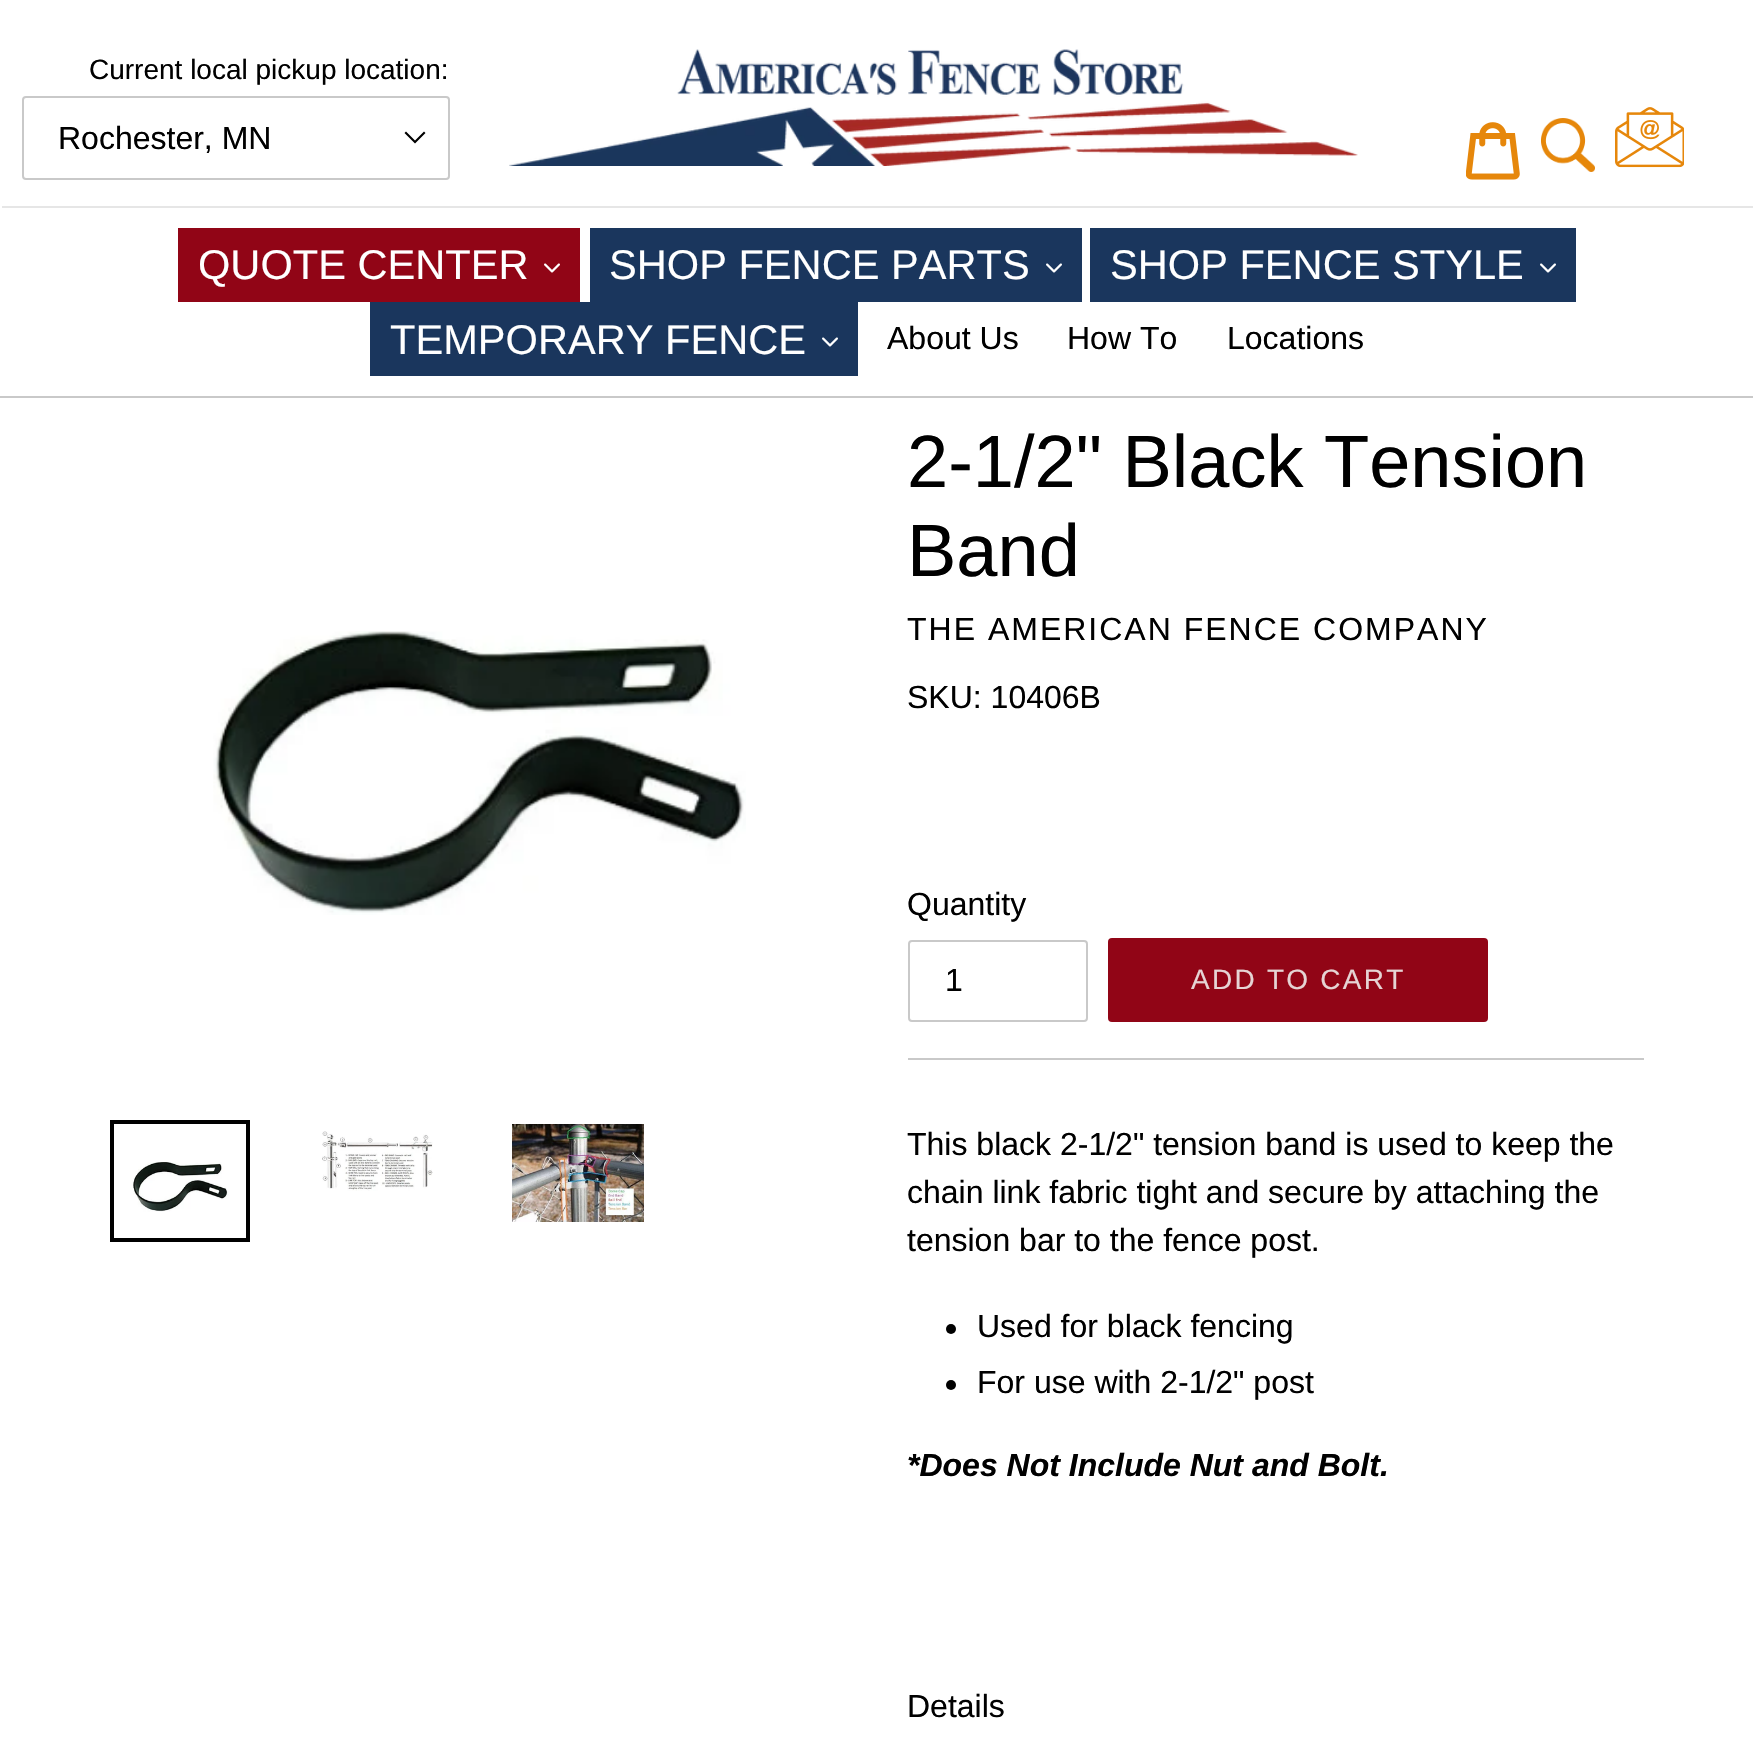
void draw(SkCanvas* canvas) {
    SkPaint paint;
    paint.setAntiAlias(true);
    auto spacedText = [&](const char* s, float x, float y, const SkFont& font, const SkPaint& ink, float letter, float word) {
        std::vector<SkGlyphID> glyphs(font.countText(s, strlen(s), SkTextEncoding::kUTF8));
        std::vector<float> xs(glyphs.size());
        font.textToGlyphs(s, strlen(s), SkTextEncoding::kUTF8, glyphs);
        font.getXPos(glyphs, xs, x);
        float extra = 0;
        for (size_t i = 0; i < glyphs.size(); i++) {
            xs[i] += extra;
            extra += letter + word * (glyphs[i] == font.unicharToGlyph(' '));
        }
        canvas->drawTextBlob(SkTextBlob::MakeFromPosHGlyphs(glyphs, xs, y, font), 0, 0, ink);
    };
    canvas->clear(0xFFFFFFFF);
    paint.setColor(0xFFE6E6E6);
    canvas->drawRect(SkRect::MakeXYWH(2, 206, 1751, 2), paint);
    SkFont font1(fontMgr->matchFamilyStyle("Liberation Sans", SkFontStyle::Normal()), 28);
    font1.setSubpixel(true);
    paint.setColor(0xFF000000);
    canvas->drawString("Current local pickup location:", 89, 79, font1, paint);
    canvas->drawPath(SkPathBuilder().moveTo(415, 143.5f).lineTo(404.5f, 133).lineTo(406, 131.5f).lineTo(415, 140.5f).lineTo(424, 131.5f).lineTo(425.5f, 133).close().detach(), paint);
    paint.setStyle(SkPaint::kStroke_Style);
    paint.setStrokeWidth(2);
    paint.setColor(0xFFC9C9C9);
    canvas->drawRoundRect(SkRect::MakeXYWH(23, 97, 426, 82), 3, 3, paint);
    SkFont font2(fontMgr->matchFamilyStyle("Liberation Sans", SkFontStyle::Normal()), 32);
    font2.setSubpixel(true);
    paint.setStyle(SkPaint::kFill_Style);
    paint.setColor(0xFF000000);
    canvas->drawString("Rochester, MN", 58, 149, font2, paint);
    canvas->drawImageRect(SkImages::DeferredFromEncodedData(SkData::MakeFromFileName("img1.png")), SkRect::MakeXYWH(509, 49, 849, 117), SkSamplingOptions());
    canvas->drawImageRect(SkImages::DeferredFromEncodedData(SkData::MakeFromFileName("img2.png")), SkRect::MakeXYWH(1466, 122, 54, 58), SkSamplingOptions());
    canvas->drawImageRect(SkImages::DeferredFromEncodedData(SkData::MakeFromFileName("img3.png")), SkRect::MakeXYWH(1541, 118, 54, 54), SkSamplingOptions());
    canvas->drawImageRect(SkImages::DeferredFromEncodedData(SkData::MakeFromFileName("img4.png")), SkRect::MakeXYWH(1615, 107, 69, 61), SkSamplingOptions());
    paint.setColor(0xFFC9C9C9);
    canvas->drawRect(SkRect::MakeXYWH(0, 396, 1753, 2), paint);
    paint.setColor(0xFF910516);
    canvas->drawRect(SkRect::MakeXYWH(178, 228, 402, 74), paint);
    SkFont font3(fontMgr->matchFamilyStyle("Liberation Sans", SkFontStyle::Normal()), 41.6f);
    font3.setSubpixel(true);
    paint.setColor(0xFFFFFFFF);
    canvas->drawString("QUOTE CENTER", 198, 279, font3, paint);
    canvas->drawImageRect(SkImages::DeferredFromEncodedData(SkData::MakeFromFileName("img5.png")), SkRect::MakeXYWH(544, 263, 16, 10), SkSamplingOptions());
    paint.setColor(0xFF1A365D);
    canvas->drawRect(SkRect::MakeXYWH(590, 228, 492, 74), paint);
    paint.setColor(0xFFFFFFFF);
    canvas->drawString("SHOP FENCE PARTS", 609, 279, font3, paint);
    canvas->drawImageRect(SkImages::DeferredFromEncodedData(SkData::MakeFromFileName("img6.png")), SkRect::MakeXYWH(1046, 263, 16, 10), SkSamplingOptions());
    paint.setColor(0xFF1A365D);
    canvas->drawRect(SkRect::MakeXYWH(1090, 228, 486, 74), paint);
    paint.setColor(0xFFFFFFFF);
    canvas->drawString("SHOP FENCE STYLE", 1110, 279, font3, paint);
    canvas->drawImageRect(SkImages::DeferredFromEncodedData(SkData::MakeFromFileName("img6.png")), SkRect::MakeXYWH(1540, 263, 16, 10), SkSamplingOptions());
    paint.setColor(0xFF1A365D);
    canvas->drawRect(SkRect::MakeXYWH(370, 302, 488, 74), paint);
    paint.setColor(0xFFFFFFFF);
    canvas->drawString("TEMPORARY FENCE", 390, 354, font3, paint);
    canvas->drawImageRect(SkImages::DeferredFromEncodedData(SkData::MakeFromFileName("img6.png")), SkRect::MakeXYWH(822, 337, 16, 10), SkSamplingOptions());
    paint.setColor(0xFF000000);
    canvas->drawString("About Us", 887, 349, font2, paint);
    canvas->drawString("How To", 1067, 349, font2, paint);
    canvas->drawString("Locations", 1227, 349, font2, paint);
    canvas->drawImageRect(SkImages::DeferredFromEncodedData(SkData::MakeFromFileName("img7.png")), SkRect::MakeXYWH(213, 631, 533, 284), SkSamplingOptions());
    paint.setStyle(SkPaint::kStroke_Style);
    paint.setStrokeWidth(4);
    canvas->drawRect(SkRect::MakeXYWH(112, 1122, 136, 118), paint);
    canvas->drawImageRect(SkImages::DeferredFromEncodedData(SkData::MakeFromFileName("img8.png")), SkRect::MakeXYWH(133, 1162, 96, 50), SkSamplingOptions());
    canvas->drawImageRect(SkImages::DeferredFromEncodedData(SkData::MakeFromFileName("img9.png")), SkRect::MakeXYWH(322, 1131, 111, 60), SkSamplingOptions());
    canvas->drawImageRect(SkImages::DeferredFromEncodedData(SkData::MakeFromFileName("img10.png")), SkRect::MakeXYWH(512, 1124, 132, 98), SkSamplingOptions());
    SkFont font4(fontMgr->matchFamilyStyle("Liberation Sans", SkFontStyle::Normal()), 74);
    font4.setSubpixel(true);
    paint.setStyle(SkPaint::kFill_Style);
    canvas->drawString("2-1/2\" Black Tension", 907, 487, font4, paint);
    canvas->drawString("Band", 907, 576, font4, paint);
    spacedText("THE AMERICAN FENCE COMPANY", 907, 640, font2, paint, 2, 0);
    canvas->drawString("SKU: 10406B", 907, 708, font2, paint);
    canvas->drawString("Quantity", 907, 915, font2, paint);
    paint.setStyle(SkPaint::kStroke_Style);
    paint.setStrokeWidth(2);
    paint.setColor(0xFFC9C9C9);
    canvas->drawRoundRect(SkRect::MakeXYWH(909, 941, 178, 80), 3, 3, paint);
    paint.setStyle(SkPaint::kFill_Style);
    paint.setColor(0xFF000000);
    canvas->drawString("1", 945, 991, font2, paint);
    paint.setColor(0xFF910516);
    canvas->drawRoundRect(SkRect::MakeXYWH(1108, 938, 380, 84), 4, 4, paint);
    paint.setColor(0xFFE6D4D4);
    spacedText("ADD TO CART", 1191, 989, font1, paint, 2.25f, 0);
    paint.setColor(0xFFC9C9C9);
    canvas->drawRect(SkRect::MakeXYWH(908, 1058, 736, 2), paint);
    paint.setColor(0xFF000000);
    canvas->drawString("This black 2-1/2\" tension band is used to keep the", 907, 1155, font2, paint);
    canvas->drawString("chain link fabric tight and secure by attaching the", 907, 1203, font2, paint);
    canvas->drawString("tension bar to the fence post.", 907, 1251, font2, paint);
    canvas->drawCircle(951, 1329, 5, paint);
    canvas->drawString("Used for black fencing", 977, 1337, font2, paint);
    canvas->drawCircle(951, 1385, 5, paint);
    canvas->drawString("For use with 2-1/2\" post", 977, 1393, font2, paint);
    SkFont font5(fontMgr->matchFamilyStyle("Liberation Sans", SkFontStyle::BoldItalic()), 32);
    font5.setSubpixel(true);
    canvas->drawString("*Does Not Include Nut and Bolt.", 907, 1476, font5, paint);
    canvas->drawString("Details", 907, 1717, font2, paint);
}
